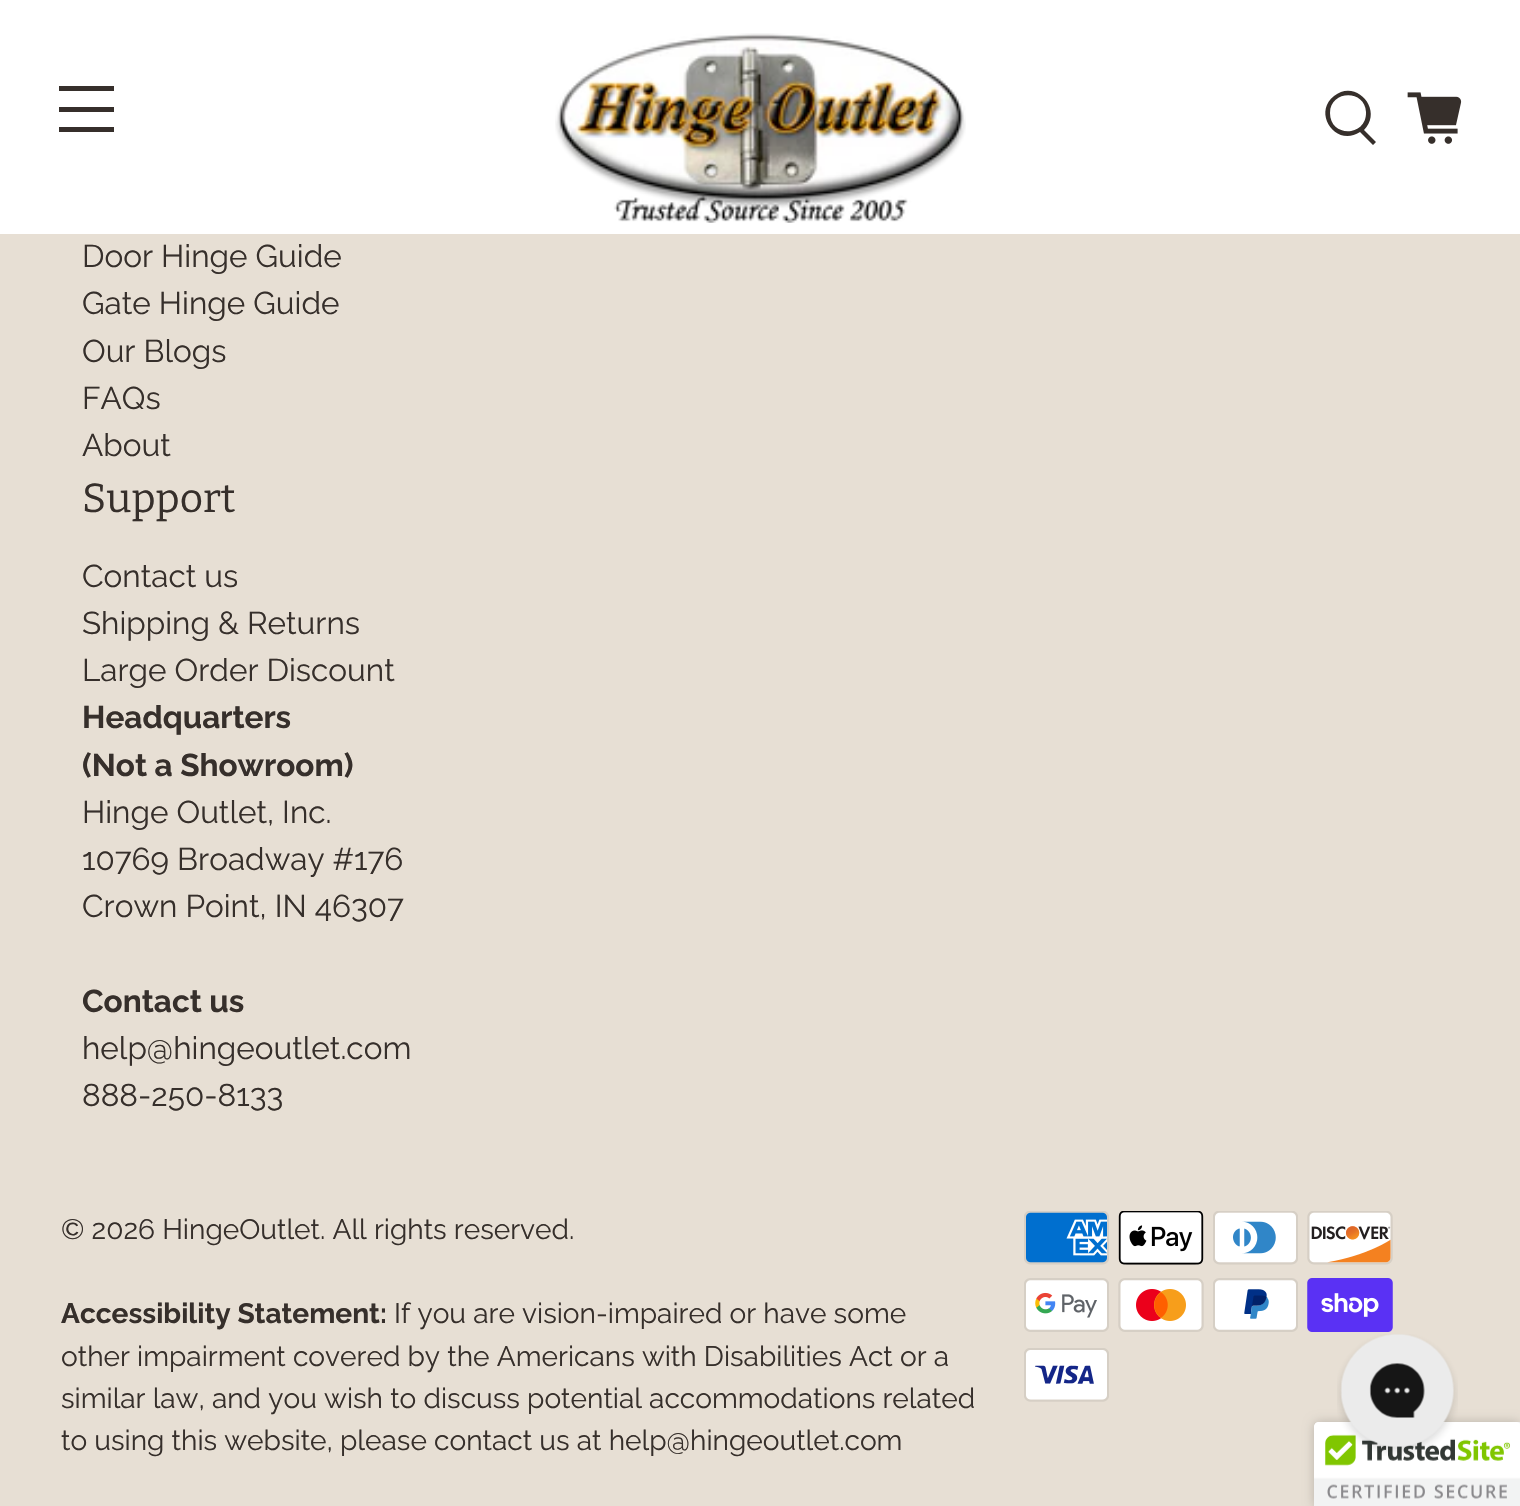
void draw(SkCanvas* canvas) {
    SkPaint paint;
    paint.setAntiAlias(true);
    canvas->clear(0xFFE7DFD4);
    paint.setColor(0xFFFFFFFF);
    canvas->drawRect(SkRect::MakeXYWH(0, 0, 1520, 234), paint);
    paint.setColor(0xFF362F2B);
    canvas->drawRect(SkRect::MakeXYWH(59, 86, 55, 5), paint);
    canvas->drawRect(SkRect::MakeXYWH(59, 107, 55, 5), paint);
    canvas->drawRect(SkRect::MakeXYWH(59, 127, 55, 5), paint);
    canvas->drawImageRect(SkImages::DeferredFromEncodedData(SkData::MakeFromFileName("img1.png")), SkRect::MakeXYWH(555, 33, 411, 190), SkSamplingOptions());
    canvas->drawPath(SkPathBuilder().moveTo(1376, 142).lineTo(1364, 130).cubicTo(1384, 110, 1356, 78, 1334, 96).cubicTo(1312, 113, 1336, 148, 1360, 132).lineTo(1373, 145).close().moveTo(1330, 113).cubicTo(1330, 90, 1365, 89, 1366, 112).cubicTo(1367, 137, 1330, 138, 1330, 113).close().detach(), paint);
    canvas->drawImageRect(SkImages::DeferredFromEncodedData(SkData::MakeFromFileName("img2.png")), SkRect::MakeXYWH(1407, 92, 55, 52), SkSamplingOptions());
    SkFont font1(fontMgr->matchFamilyStyle("Raleway", SkFontStyle(100, SkFontStyle::kNormal_Width, SkFontStyle::kUpright_Slant)), 31.5f);
    font1.setSubpixel(true);
    canvas->drawString("Door Hinge Guide", 82, 267, font1, paint);
    canvas->drawString("Gate Hinge Guide", 82, 314, font1, paint);
    canvas->drawString("Our Blogs", 82, 362, font1, paint);
    canvas->drawString("FAQs", 82, 409, font1, paint);
    canvas->drawString("About", 82, 456, font1, paint);
    SkFont font2(fontMgr->matchFamilyStyle("Bitter", SkFontStyle::Normal()), 40.5f);
    font2.setSubpixel(true);
    canvas->drawString("Support", 82, 512, font2, paint);
    canvas->drawString("Contact us", 82, 587, font1, paint);
    canvas->drawString("Shipping & Returns", 82, 634, font1, paint);
    canvas->drawString("Large Order Discount", 82, 681, font1, paint);
    SkFont font3(fontMgr->matchFamilyStyle("Raleway", SkFontStyle::Bold()), 31.5f);
    font3.setSubpixel(true);
    canvas->drawString("Headquarters", 82, 728, font3, paint);
    canvas->drawString("(Not a Showroom)", 82, 776, font3, paint);
    canvas->drawString("Hinge Outlet, Inc.", 82, 823, font1, paint);
    canvas->drawString("10769 Broadway #176", 82, 870, font1, paint);
    canvas->drawString("Crown Point, IN 46307", 82, 917, font1, paint);
    canvas->drawString("Contact us", 82, 1012, font3, paint);
    canvas->drawString("help@hingeoutlet.com", 82, 1059, font1, paint);
    canvas->drawString("888-250-8133", 82, 1106, font1, paint);
    SkFont font4(fontMgr->matchFamilyStyle("Raleway", SkFontStyle(100, SkFontStyle::kNormal_Width, SkFontStyle::kUpright_Slant)), 28.1f);
    font4.setSubpixel(true);
    canvas->drawString("© 2026 HingeOutlet. All rights reserved.", 61, 1239, font4, paint);
    SkFont font5(fontMgr->matchFamilyStyle("Raleway", SkFontStyle::Bold()), 28.1f);
    font5.setSubpixel(true);
    canvas->drawString("Accessibility Statement:", 61, 1323, font5, paint);
    canvas->drawString("If you are vision-impaired or have some", 394, 1323, font4, paint);
    canvas->drawString("other impairment covered by the Americans with Disabilities Act or a", 61, 1366, font4, paint);
    canvas->drawString("similar law, and you wish to discuss potential accommodations related", 61, 1408, font4, paint);
    canvas->drawString("to using this website, please contact us at help@hingeoutlet.com", 61, 1450, font4, paint);
    canvas->drawImageRect(SkImages::DeferredFromEncodedData(SkData::MakeFromFileName("img3.png")), SkRect::MakeXYWH(1024, 1211, 85, 54), SkSamplingOptions());
    canvas->drawImageRect(SkImages::DeferredFromEncodedData(SkData::MakeFromFileName("img4.png")), SkRect::MakeXYWH(1118, 1211, 86, 54), SkSamplingOptions());
    canvas->drawImageRect(SkImages::DeferredFromEncodedData(SkData::MakeFromFileName("img5.png")), SkRect::MakeXYWH(1213, 1211, 85, 54), SkSamplingOptions());
    canvas->drawImageRect(SkImages::DeferredFromEncodedData(SkData::MakeFromFileName("img6.png")), SkRect::MakeXYWH(1307, 1211, 86, 54), SkSamplingOptions());
    canvas->drawImageRect(SkImages::DeferredFromEncodedData(SkData::MakeFromFileName("img7.png")), SkRect::MakeXYWH(1024, 1278, 85, 54), SkSamplingOptions());
    canvas->drawImageRect(SkImages::DeferredFromEncodedData(SkData::MakeFromFileName("img8.png")), SkRect::MakeXYWH(1118, 1278, 86, 54), SkSamplingOptions());
    canvas->drawImageRect(SkImages::DeferredFromEncodedData(SkData::MakeFromFileName("img9.png")), SkRect::MakeXYWH(1213, 1278, 85, 54), SkSamplingOptions());
    canvas->drawImageRect(SkImages::DeferredFromEncodedData(SkData::MakeFromFileName("img10.png")), SkRect::MakeXYWH(1307, 1278, 86, 54), SkSamplingOptions());
    canvas->drawImageRect(SkImages::DeferredFromEncodedData(SkData::MakeFromFileName("img11.png")), SkRect::MakeXYWH(1024, 1348, 85, 54), SkSamplingOptions());
    paint.setColor(0x33000000);
    paint.setMaskFilter(SkMaskFilter::MakeBlur(kNormal_SkBlurStyle, 5.5f));
    canvas->drawRoundRect(SkRect::MakeXYWH(1314, 1422, 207, 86), 5, 5, paint);
    paint.setMaskFilter(nullptr);
    paint.setColor(0xFFFFFFFF);
    canvas->drawPath(SkPathBuilder().moveTo(1319, 1422).lineTo(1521, 1422).lineTo(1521, 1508).lineTo(1314, 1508).lineTo(1314, 1427).cubicTo(1314, 1424, 1316, 1422, 1319, 1422).close().detach(), paint);
    canvas->drawImageRect(SkImages::DeferredFromEncodedData(SkData::MakeFromFileName("img13.png")), SkRect::MakeXYWH(1314, 1422, 206, 84), SkSamplingOptions());
    canvas->drawImageRect(SkImages::DeferredFromEncodedData(SkData::MakeFromFileName("img12.png")), SkRect::MakeXYWH(1337, 1334, 121, 122), SkSamplingOptions());
}
